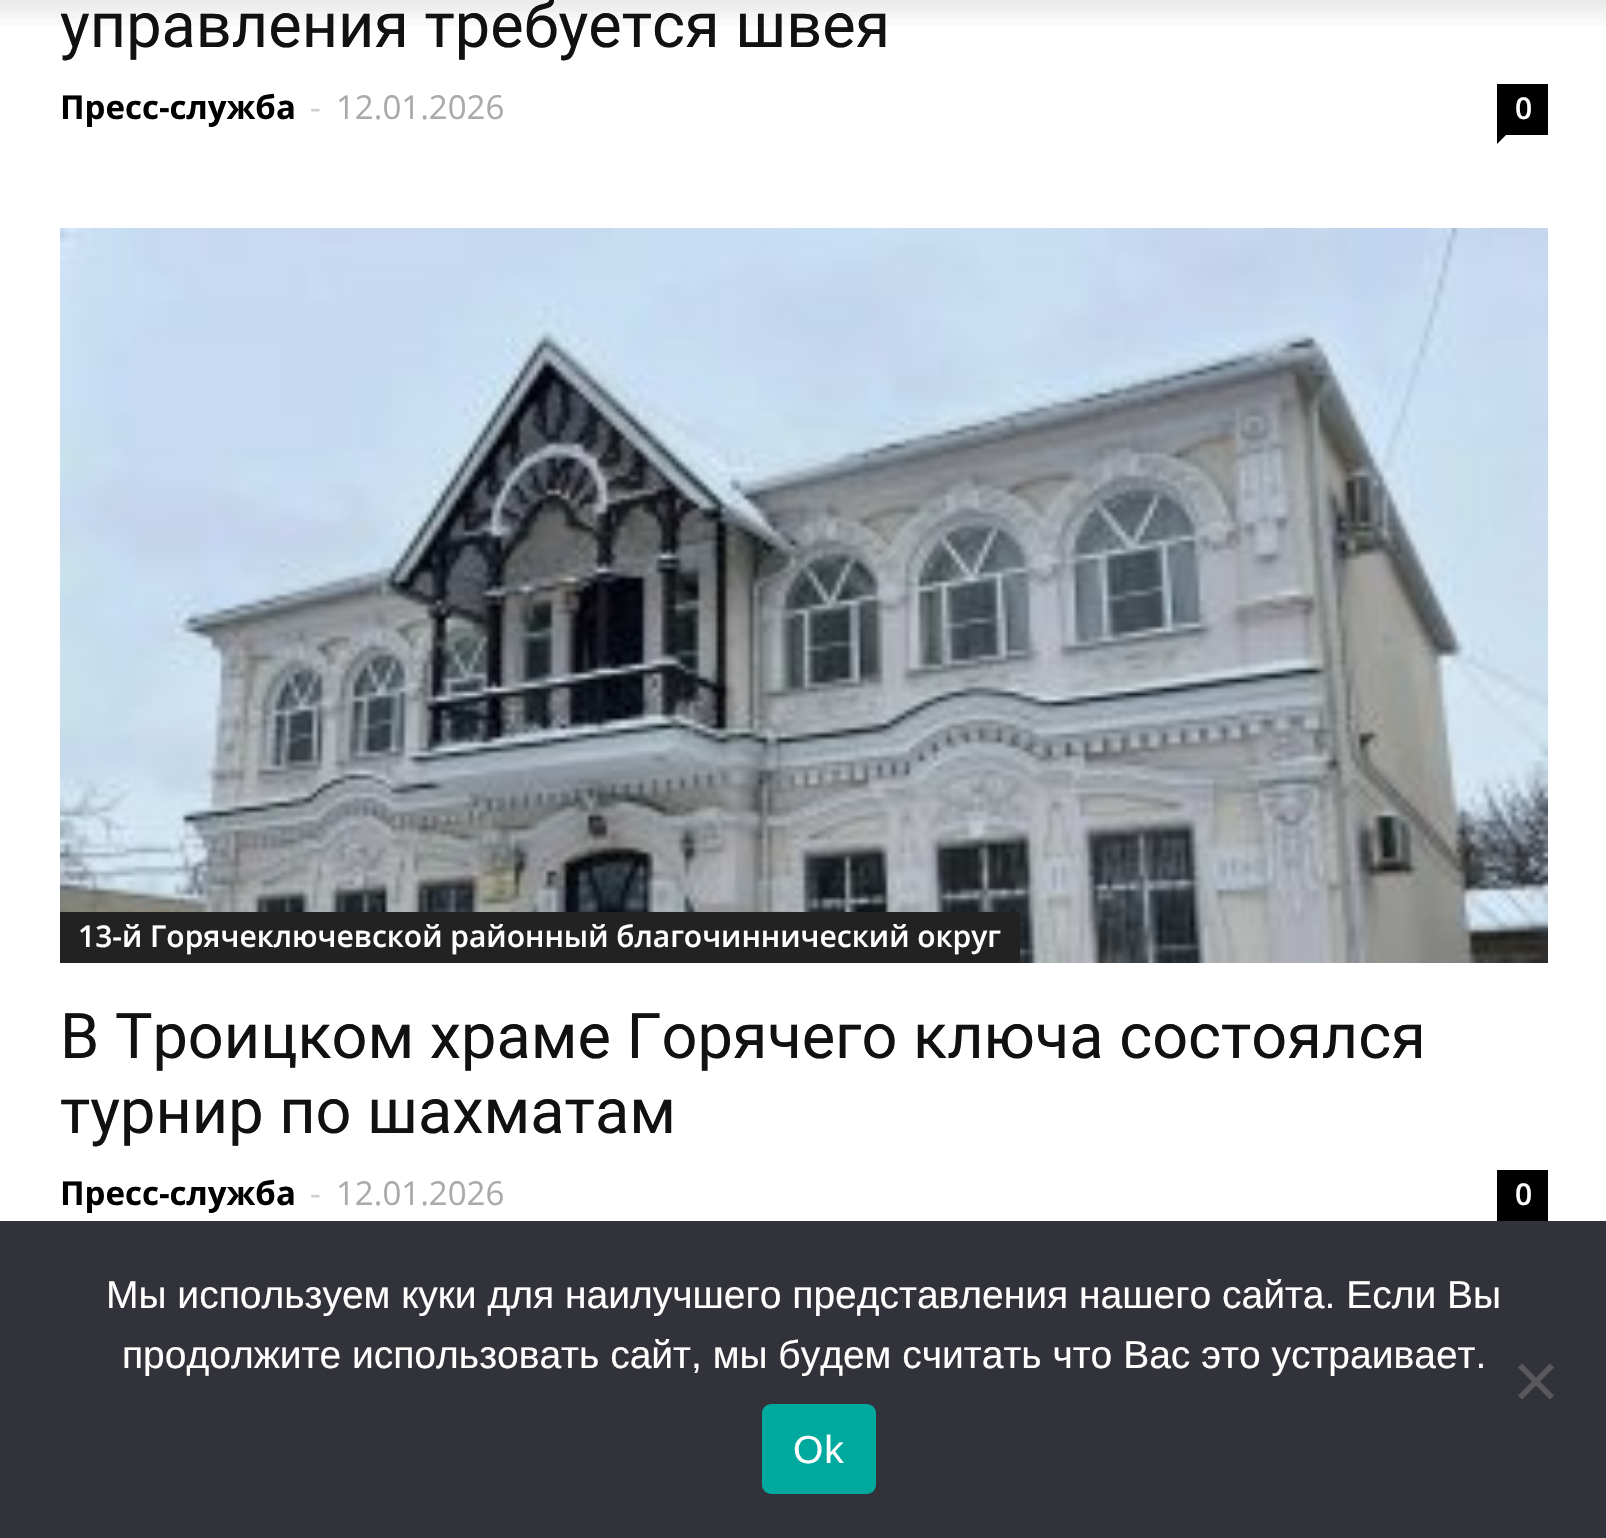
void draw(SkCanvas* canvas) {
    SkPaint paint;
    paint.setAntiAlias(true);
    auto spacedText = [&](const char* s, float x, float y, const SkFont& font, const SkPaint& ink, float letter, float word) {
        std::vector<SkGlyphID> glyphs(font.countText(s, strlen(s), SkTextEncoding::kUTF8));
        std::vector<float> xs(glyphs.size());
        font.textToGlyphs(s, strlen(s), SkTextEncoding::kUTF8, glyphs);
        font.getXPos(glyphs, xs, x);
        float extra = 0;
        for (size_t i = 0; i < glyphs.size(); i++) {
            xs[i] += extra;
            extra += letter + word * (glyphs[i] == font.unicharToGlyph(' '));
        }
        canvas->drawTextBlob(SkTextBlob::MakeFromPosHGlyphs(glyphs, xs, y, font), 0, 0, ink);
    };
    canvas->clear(0xFFFFFFFF);
    SkFont font1(fontMgr->matchFamilyStyle("Roboto", SkFontStyle::Normal()), 63);
    font1.setSubpixel(true);
    paint.setColor(0xFF111111);
    canvas->drawString("управления требуется швея", 60, 47, font1, paint);
    canvas->drawImageRect(SkImages::DeferredFromEncodedData(SkData::MakeFromFileName("img1.png")), SkRect::MakeXYWH(0, 0, 1606, 26), SkSamplingOptions());
    SkFont font2(fontMgr->matchFamilyStyle("Open Sans", SkFontStyle::Bold()), 33);
    font2.setSubpixel(true);
    paint.setColor(0xFF000000);
    canvas->drawString("Пресс-служба", 60, 119, font2, paint);
    SkFont font3(fontMgr->matchFamilyStyle("Open Sans", SkFontStyle::Normal()), 33);
    font3.setSubpixel(true);
    paint.setColor(0xFFCCCCCC);
    canvas->drawString("-", 310, 119, font3, paint);
    paint.setColor(0xFFAAAAAA);
    canvas->drawString("12.01.2026", 336, 119, font3, paint);
    paint.setColor(0xFF000000);
    canvas->drawRect(SkRect::MakeXYWH(1497, 84, 51, 51), paint);
    SkFont font4(fontMgr->matchFamilyStyle("Open Sans", SkFontStyle(600, SkFontStyle::kNormal_Width, SkFontStyle::kUpright_Slant)), 30);
    font4.setSubpixel(true);
    paint.setColor(0xFFFFFFFF);
    canvas->drawString("0", 1515, 119, font4, paint);
    paint.setColor(0xFF000000);
    canvas->drawPath(SkPathBuilder().moveTo(1497, 135).lineTo(1506, 135).lineTo(1497, 144).close().detach(), paint);
    canvas->drawImageRect(SkImages::DeferredFromEncodedData(SkData::MakeFromFileName("img2.png")), SkRect::MakeXYWH(60, 228, 1488, 735), SkSamplingOptions());
    paint.setColor(0xFF222222);
    canvas->drawRect(SkRect::MakeXYWH(60, 912, 960, 51), paint);
    paint.setColor(0xFFFFFFFF);
    canvas->drawString("13-й Горячеключевской районный благочиннический округ", 78, 947, font4, paint);
    paint.setColor(0xFF111111);
    canvas->drawString("В Троицком храме Горячего ключа состоялся", 60, 1058, font1, paint);
    canvas->drawString("турнир по шахматам", 60, 1133, font1, paint);
    paint.setColor(0xFF000000);
    canvas->drawString("Пресс-служба", 60, 1205, font2, paint);
    paint.setColor(0xFFCCCCCC);
    canvas->drawString("-", 310, 1205, font3, paint);
    paint.setColor(0xFFAAAAAA);
    canvas->drawString("12.01.2026", 336, 1205, font3, paint);
    paint.setColor(0xFF000000);
    canvas->drawRect(SkRect::MakeXYWH(1497, 1170, 51, 51), paint);
    paint.setColor(0xFFFFFFFF);
    canvas->drawString("0", 1515, 1205, font4, paint);
    paint.setColor(0xFF32323A);
    canvas->drawRect(SkRect::MakeXYWH(0, 1221, 1606, 317), paint);
    SkFont font5(fontMgr->matchFamilyStyle("Liberation Sans", SkFontStyle::Normal()), 39);
    font5.setSubpixel(true);
    paint.setColor(0xFFFFFFFF);
    canvas->drawString("Мы используем куки для наилучшего представления нашего сайта. Если Вы", 106, 1308, font5, paint);
    canvas->drawString("продолжите использовать сайт, мы будем считать что Вас это устраивает.", 122, 1368, font5, paint);
    paint.setColor(0xFF59595D);
    canvas->drawPath(SkPathBuilder().moveTo(1550, 1363.5f).lineTo(1554, 1367.5f).lineTo(1522, 1399.5f).lineTo(1518, 1395.5f).close().detach(), paint);
    canvas->drawPath(SkPathBuilder().moveTo(1518, 1367.5f).lineTo(1522, 1363.5f).lineTo(1554, 1395.5f).lineTo(1550, 1399.5f).close().detach(), paint);
    paint.setColor(0xFF00A99D);
    canvas->drawRoundRect(SkRect::MakeXYWH(762, 1404, 114, 90), 9, 9, paint);
    paint.setColor(0xFFFFFFFF);
    spacedText("Ok", 793, 1463, font5, paint, 1, 0);
}
